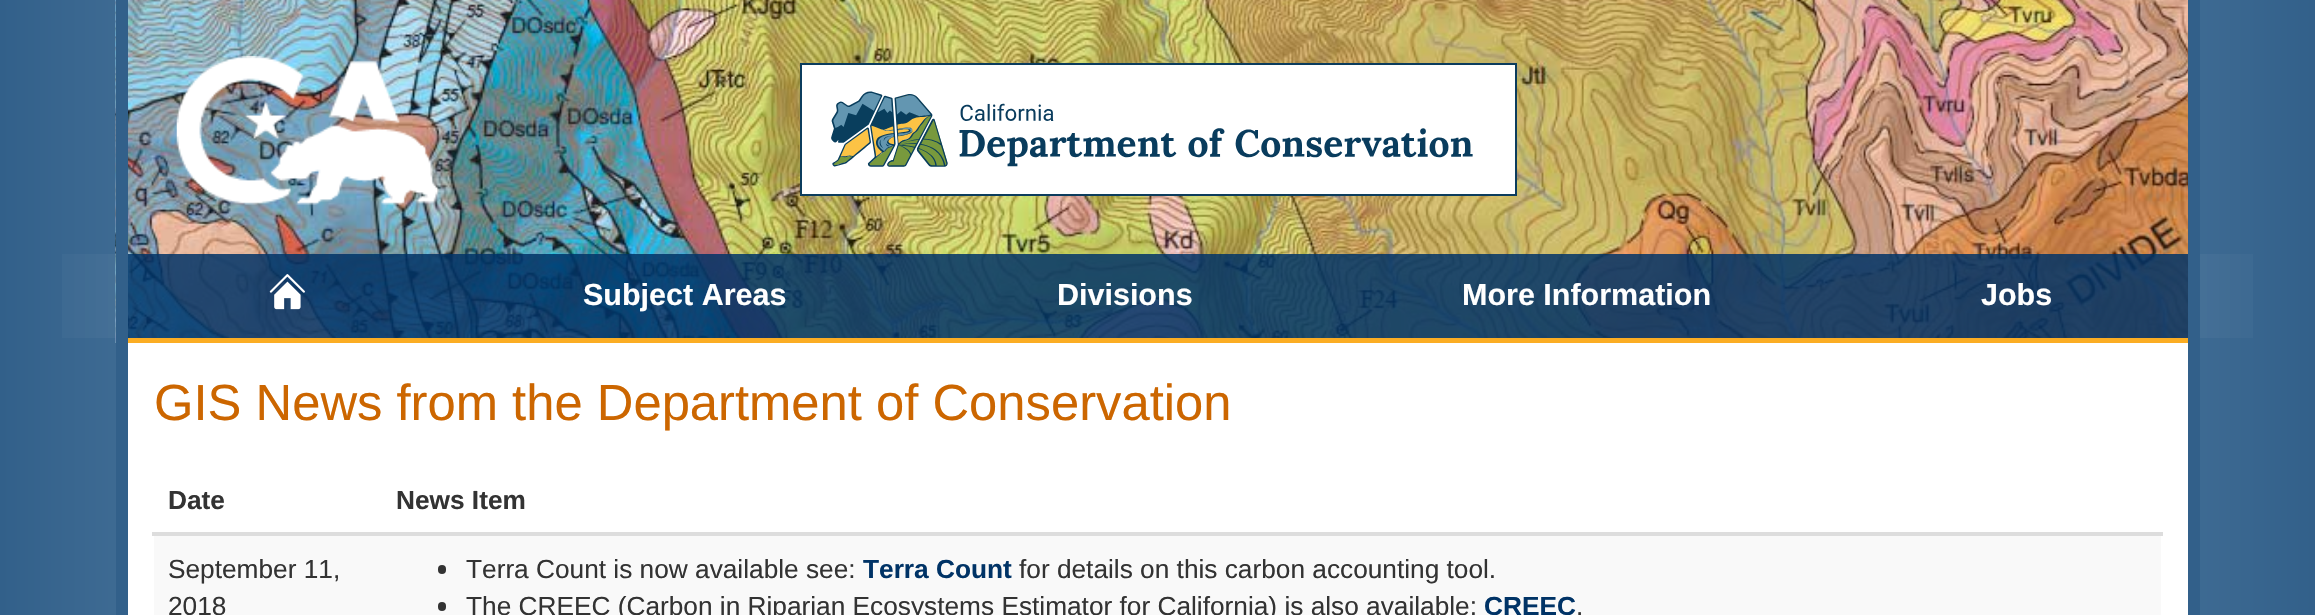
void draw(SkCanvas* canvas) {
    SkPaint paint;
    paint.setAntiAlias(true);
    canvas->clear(0xFFFFFFFF);
    {
        const SkColor colors[] = {0xFF32608A, 0xFFA6C6DF, 0xFF32608A};
        const float stops[] = {0, 0.5f, 1};
        const SkPoint ends[] = {{0, 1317}, {2315, 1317}};
        paint.setShader(SkGradientShader::MakeLinear(ends, colors, stops, 3, SkTileMode::kClamp));
        paint.setAlpha(255);
    }
    canvas->drawRect(SkRect::MakeXYWH(0, 0, 2315, 615), paint);
    {
        const SkColor colors[] = {0x00FFFFFF, 0x66FFFFFF, 0x00FFFFFF};
        const float stops[] = {0, 0.5f, 1};
        const SkPoint ends[] = {{0, 296}, {2315, 296}};
        paint.setShader(SkGradientShader::MakeLinear(ends, colors, stops, 3, SkTileMode::kClamp));
        paint.setAlpha(255);
    }
    canvas->drawRect(SkRect::MakeXYWH(62, 254, 2191, 84), paint);
    canvas->drawImageRect(SkImages::DeferredFromEncodedData(SkData::MakeFromFileName("img1.png")), SkRect::MakeXYWH(115, 0, 2073, 343), SkSamplingOptions());
    paint.setShader(nullptr);
    paint.setColor(0xFF32608A);
    canvas->drawRect(SkRect::MakeXYWH(116, 0, 12, 343), paint);
    canvas->drawImageRect(SkImages::DeferredFromEncodedData(SkData::MakeFromFileName("img2.png")), SkRect::MakeXYWH(176, 56, 264, 149), SkSamplingOptions());
    paint.setColor(0xFFFFFFFF);
    canvas->drawRect(SkRect::MakeXYWH(801, 64, 715, 131), paint);
    paint.setStyle(SkPaint::kStroke_Style);
    paint.setStrokeWidth(2);
    paint.setColor(0xFF0B3C5D);
    canvas->drawRect(SkRect::MakeXYWH(801, 64, 715, 131), paint);
    canvas->drawImageRect(SkImages::DeferredFromEncodedData(SkData::MakeFromFileName("img3.png")), SkRect::MakeXYWH(831, 91, 642, 76), SkSamplingOptions());
    paint.setStyle(SkPaint::kFill_Style);
    paint.setColor(0xD9003366);
    canvas->drawRect(SkRect::MakeXYWH(128, 254, 2060, 84), paint);
    paint.setColor(0xFFFBAD23);
    canvas->drawRect(SkRect::MakeXYWH(128, 338, 2060, 5), paint);
    canvas->drawImageRect(SkImages::DeferredFromEncodedData(SkData::MakeFromFileName("img4.png")), SkRect::MakeXYWH(269, 274, 36, 36), SkSamplingOptions());
    SkFont font1(fontMgr->matchFamilyStyle("Liberation Sans", SkFontStyle::Bold()), 30.5f);
    font1.setSubpixel(true);
    paint.setColor(0xFFFFFFFF);
    canvas->drawString("Subject Areas", 583, 305, font1, paint);
    canvas->drawString("Divisions", 1057, 305, font1, paint);
    canvas->drawString("More Information", 1462, 305, font1, paint);
    canvas->drawString("Jobs", 1981, 305, font1, paint);
    canvas->drawRect(SkRect::MakeXYWH(128, 343, 2060, 272), paint);
    paint.setColor(0xFF32608A);
    canvas->drawRect(SkRect::MakeXYWH(2188, 0, 12, 615), paint);
    canvas->drawRect(SkRect::MakeXYWH(116, 343, 12, 272), paint);
    SkFont font2(fontMgr->matchFamilyStyle("Liberation Sans", SkFontStyle::Normal()), 50.75f);
    font2.setSubpixel(true);
    paint.setColor(0xFFCC6600);
    canvas->drawString("GIS News from the Department of Conservation", 154, 420, font2, paint);
    SkFont font3(fontMgr->matchFamilyStyle("Liberation Sans", SkFontStyle::Bold()), 26.25f);
    font3.setSubpixel(true);
    paint.setColor(0xFF333333);
    canvas->drawString("Date", 168, 509, font3, paint);
    paint.setColor(0xFFDDDDDD);
    canvas->drawRect(SkRect::MakeXYWH(152, 532, 2011, 4), paint);
    paint.setColor(0xFF333333);
    canvas->drawString("News Item", 396, 509, font3, paint);
    paint.setColor(0xFFF9F9F9);
    canvas->drawRect(SkRect::MakeXYWH(154, 536, 2007, 79), paint);
    SkFont font4(fontMgr->matchFamilyStyle("Liberation Sans", SkFontStyle::Normal()), 26.25f);
    font4.setSubpixel(true);
    paint.setColor(0xFF333333);
    canvas->drawString("September 11,", 168, 578, font4, paint);
    canvas->drawString("2018", 168, 615, font4, paint);
    canvas->drawRoundRect(SkRect::MakeXYWH(438, 565, 8, 9), 4, 4, paint);
    canvas->drawString("Terra Count is now available see:", 466, 578, font4, paint);
    paint.setColor(0xFF003366);
    canvas->drawString("Terra Count", 863, 578, font3, paint);
    paint.setColor(0xFF333333);
    canvas->drawString("for details on this carbon accounting tool.", 1019, 578, font4, paint);
    canvas->drawRoundRect(SkRect::MakeXYWH(438, 602, 8, 9), 4, 4, paint);
    canvas->drawString("The CREEC (Carbon in Riparian Ecosystems Estimator for California) is also available:", 466, 615, font4, paint);
    paint.setColor(0xFF003366);
    canvas->drawString("CREEC", 1484, 615, font3, paint);
    paint.setColor(0xFF333333);
    canvas->drawString(".", 1576, 615, font4, paint);
}
